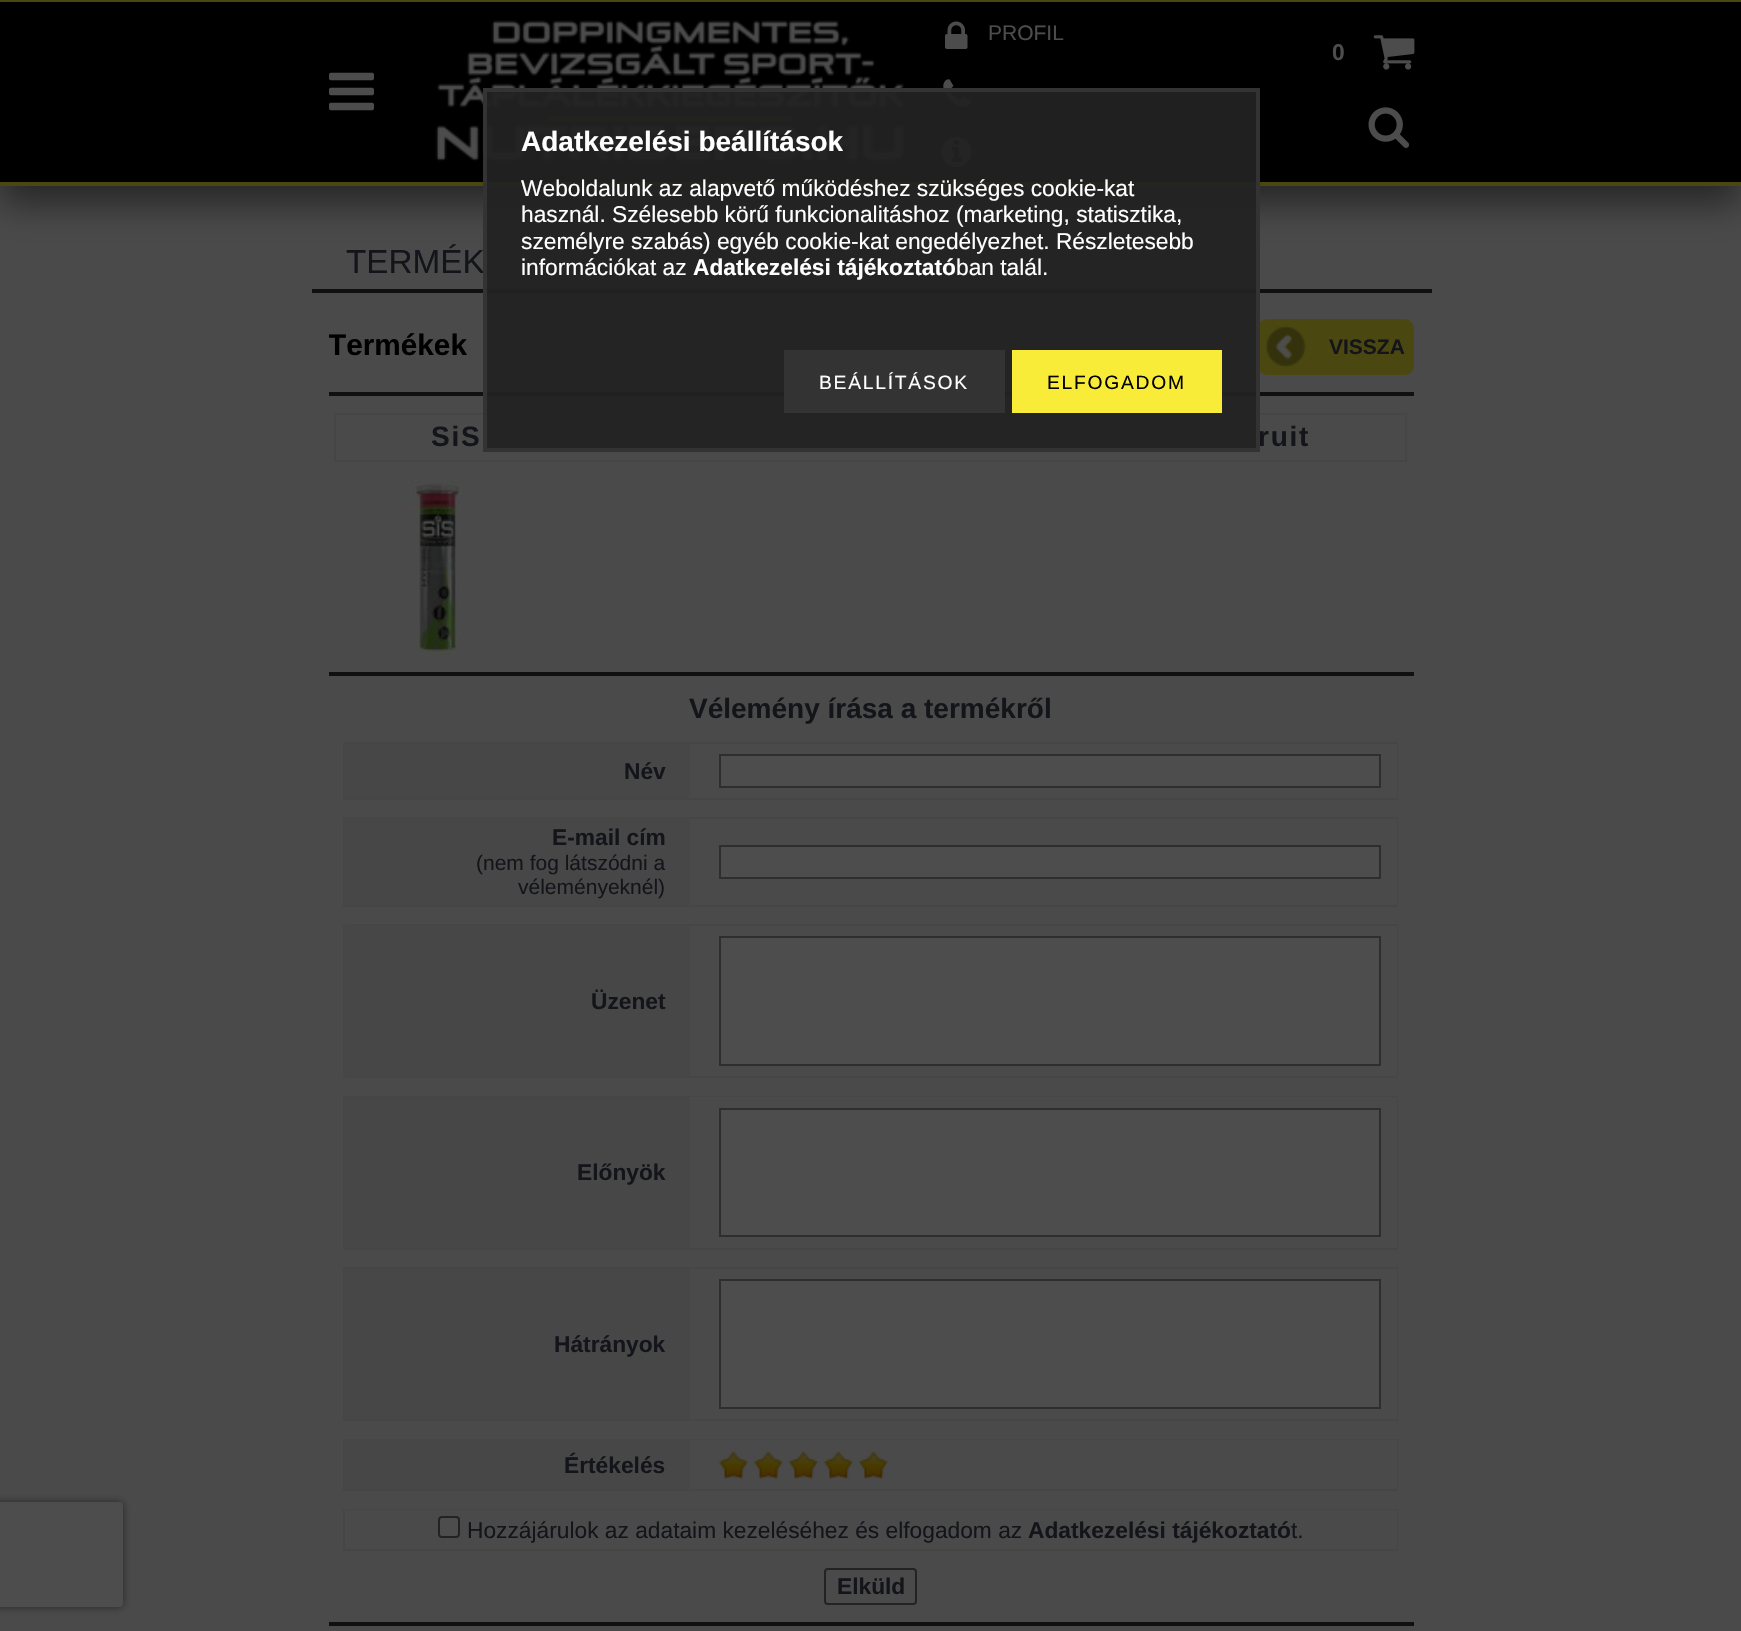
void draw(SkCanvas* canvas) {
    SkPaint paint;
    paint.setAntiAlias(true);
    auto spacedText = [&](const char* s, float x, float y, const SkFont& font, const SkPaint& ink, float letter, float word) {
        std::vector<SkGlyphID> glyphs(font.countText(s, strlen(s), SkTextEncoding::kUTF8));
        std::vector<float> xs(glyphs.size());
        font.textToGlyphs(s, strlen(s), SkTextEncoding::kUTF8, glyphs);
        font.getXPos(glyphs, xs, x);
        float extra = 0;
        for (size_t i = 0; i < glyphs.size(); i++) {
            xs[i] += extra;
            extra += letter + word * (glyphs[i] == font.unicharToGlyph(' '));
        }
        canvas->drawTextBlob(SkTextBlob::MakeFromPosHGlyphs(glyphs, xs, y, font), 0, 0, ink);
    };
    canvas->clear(0xFF4A4A4A);
    paint.setColor(0x80000000);
    paint.setMaskFilter(SkMaskFilter::MakeBlur(kNormal_SkBlurStyle, 17.5f));
    canvas->drawRect(SkRect::MakeXYWH(0, 18, 1741, 185), paint);
    paint.setMaskFilter(nullptr);
    paint.setColor(0xFF4A4711);
    canvas->drawRect(SkRect::MakeXYWH(0, 0, 1741, 2), paint);
    paint.setColor(0xFF000000);
    canvas->drawRect(SkRect::MakeXYWH(0, 2, 1741, 180), paint);
    paint.setColor(0xFF4A4711);
    canvas->drawRect(SkRect::MakeXYWH(0, 182, 1741, 4), paint);
    canvas->drawImageRect(SkImages::DeferredFromEncodedData(SkData::MakeFromFileName("img1.png")), SkRect::MakeXYWH(435, 20, 470, 142), SkSamplingOptions());
    canvas->drawImageRect(SkImages::DeferredFromEncodedData(SkData::MakeFromFileName("img2.png")), SkRect::MakeXYWH(945, 21, 23, 28), SkSamplingOptions());
    SkFont font1(fontMgr->matchFamilyStyle("Liberation Sans", SkFontStyle::Normal()), 21);
    font1.setSubpixel(true);
    paint.setColor(0xFF4D4D4D);
    canvas->drawString("PROFIL", 988, 40, font1, paint);
    canvas->drawImageRect(SkImages::DeferredFromEncodedData(SkData::MakeFromFileName("img3.png")), SkRect::MakeXYWH(943, 79, 28, 28), SkSamplingOptions());
    canvas->drawImageRect(SkImages::DeferredFromEncodedData(SkData::MakeFromFileName("img4.png")), SkRect::MakeXYWH(941, 137, 31, 30), SkSamplingOptions());
    SkFont font2(fontMgr->matchFamilyStyle("Liberation Sans", SkFontStyle::Bold()), 22.75f);
    font2.setSubpixel(true);
    canvas->drawString("0", 1332, 60, font2, paint);
    canvas->drawImageRect(SkImages::DeferredFromEncodedData(SkData::MakeFromFileName("img5.png")), SkRect::MakeXYWH(1373, 35, 42, 35), SkSamplingOptions());
    canvas->drawImageRect(SkImages::DeferredFromEncodedData(SkData::MakeFromFileName("img6.png")), SkRect::MakeXYWH(1368, 107, 42, 41), SkSamplingOptions());
    canvas->drawImageRect(SkImages::DeferredFromEncodedData(SkData::MakeFromFileName("img7.png")), SkRect::MakeXYWH(329, 72, 45, 39), SkSamplingOptions());
    SkFont font3(fontMgr->matchFamilyStyle("Liberation Sans", SkFontStyle::Normal()), 33.25f);
    font3.setSubpixel(true);
    paint.setColor(0xFF14151A);
    canvas->drawString("TERMÉK", 346, 273, font3, paint);
    paint.setColor(0xFF101010);
    canvas->drawRect(SkRect::MakeXYWH(312, 289, 1120, 4), paint);
    canvas->save();
    canvas->clipRect(SkRect::MakeXYWH(329, 319, 1085, 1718));
    SkFont font4(fontMgr->matchFamilyStyle("Liberation Sans", SkFontStyle::Bold()), 29.75f);
    font4.setSubpixel(true);
    paint.setColor(0xFF000000);
    canvas->drawString("Termékek", 328, 355, font4, paint);
    canvas->restore();
    paint.setColor(0xFF4A4711);
    canvas->drawRoundRect(SkRect::MakeXYWH(1258, 319, 156, 56), 9, 9, paint);
    canvas->drawImageRect(SkImages::DeferredFromEncodedData(SkData::MakeFromFileName("img8.png")), SkRect::MakeXYWH(1265, 325, 41, 43), SkSamplingOptions());
    SkFont font5(fontMgr->matchFamilyStyle("Liberation Sans", SkFontStyle::Bold()), 21);
    font5.setSubpixel(true);
    paint.setColor(0xFF14151A);
    canvas->drawString("VISSZA", 1329, 354, font5, paint);
    paint.setColor(0xFF101010);
    canvas->drawRect(SkRect::MakeXYWH(329, 392, 1085, 4), paint);
    paint.setStyle(SkPaint::kStroke_Style);
    paint.setStrokeWidth(2);
    paint.setColor(0xFF464645);
    canvas->drawRect(SkRect::MakeXYWH(335, 414, 1071, 47), paint);
    SkFont font6(fontMgr->matchFamilyStyle("Liberation Sans", SkFontStyle::Bold()), 28);
    font6.setSubpixel(true);
    paint.setStyle(SkPaint::kFill_Style);
    paint.setColor(0xFF14151A);
    spacedText("SiS", 431, 446, font6, paint, 1.75f, 0);
    spacedText("ruit", 1258, 446, font6, paint, 1.75f, 0);
    canvas->drawImageRect(SkImages::DeferredFromEncodedData(SkData::MakeFromFileName("img9.png")), SkRect::MakeXYWH(406, 479, 56, 176), SkSamplingOptions());
    paint.setColor(0xFF101010);
    canvas->drawRect(SkRect::MakeXYWH(329, 672, 1085, 4), paint);
    paint.setColor(0xFF14151A);
    canvas->drawString("Vélemény írása a termékről", 689, 718, font6, paint);
    paint.setStyle(SkPaint::kStroke_Style);
    paint.setColor(0xFF464645);
    canvas->drawRect(SkRect::MakeXYWH(344, 743, 1053, 56), paint);
    paint.setStyle(SkPaint::kFill_Style);
    paint.setColor(0xFF474747);
    canvas->drawRect(SkRect::MakeXYWH(345, 744, 345, 54), paint);
    paint.setColor(0xFF14151A);
    canvas->drawString("Név", 624, 779, font2, paint);
    paint.setColor(0xFF4A4A4A);
    canvas->drawRect(SkRect::MakeXYWH(1396, 744, 1, 54), paint);
    paint.setColor(0xFF4D4D4D);
    canvas->drawRect(SkRect::MakeXYWH(720, 755, 660, 32), paint);
    paint.setStyle(SkPaint::kStroke_Style);
    paint.setColor(0xFF2E2E2E);
    canvas->drawRect(SkRect::MakeXYWH(720, 755, 660, 32), paint);
    paint.setColor(0xFF464645);
    canvas->drawRect(SkRect::MakeXYWH(344, 818, 1053, 88), paint);
    paint.setStyle(SkPaint::kFill_Style);
    paint.setColor(0xFF474747);
    canvas->drawRect(SkRect::MakeXYWH(345, 819, 345, 86), paint);
    paint.setColor(0xFF14151A);
    canvas->drawString("E-mail cím", 552, 845, font2, paint);
    canvas->drawString("(nem fog látszódni a", 476, 870, font1, paint);
    canvas->drawString("véleményeknél)", 518, 894, font1, paint);
    paint.setColor(0xFF4A4A4A);
    canvas->drawRect(SkRect::MakeXYWH(1396, 819, 1, 86), paint);
    paint.setColor(0xFF4D4D4D);
    canvas->drawRect(SkRect::MakeXYWH(720, 846, 660, 32), paint);
    paint.setStyle(SkPaint::kStroke_Style);
    paint.setColor(0xFF2E2E2E);
    canvas->drawRect(SkRect::MakeXYWH(720, 846, 660, 32), paint);
    paint.setColor(0xFF464645);
    canvas->drawRect(SkRect::MakeXYWH(344, 925, 1053, 152), paint);
    paint.setStyle(SkPaint::kFill_Style);
    paint.setColor(0xFF474747);
    canvas->drawRect(SkRect::MakeXYWH(345, 926, 345, 150), paint);
    paint.setColor(0xFF14151A);
    canvas->drawString("Üzenet", 591, 1009, font2, paint);
    paint.setColor(0xFF4A4A4A);
    canvas->drawRect(SkRect::MakeXYWH(1396, 926, 1, 150), paint);
    paint.setColor(0xFF4D4D4D);
    canvas->drawRect(SkRect::MakeXYWH(720, 937, 660, 128), paint);
    paint.setStyle(SkPaint::kStroke_Style);
    paint.setColor(0xFF2E2E2E);
    canvas->drawRect(SkRect::MakeXYWH(720, 937, 660, 128), paint);
    paint.setColor(0xFF464645);
    canvas->drawRect(SkRect::MakeXYWH(344, 1097, 1053, 152), paint);
    paint.setStyle(SkPaint::kFill_Style);
    paint.setColor(0xFF474747);
    canvas->drawRect(SkRect::MakeXYWH(345, 1098, 345, 150), paint);
    paint.setColor(0xFF14151A);
    canvas->drawString("Előnyök", 577, 1180, font2, paint);
    paint.setColor(0xFF4A4A4A);
    canvas->drawRect(SkRect::MakeXYWH(690, 1097, 707, 151), paint);
    paint.setColor(0xFF4D4D4D);
    canvas->drawRect(SkRect::MakeXYWH(720, 1109, 660, 127), paint);
    paint.setStyle(SkPaint::kStroke_Style);
    paint.setColor(0xFF2E2E2E);
    canvas->drawRect(SkRect::MakeXYWH(720, 1109, 660, 127), paint);
    paint.setColor(0xFF464645);
    canvas->drawRect(SkRect::MakeXYWH(344, 1268, 1053, 152), paint);
    paint.setStyle(SkPaint::kFill_Style);
    paint.setColor(0xFF474747);
    canvas->drawRect(SkRect::MakeXYWH(345, 1269, 345, 150), paint);
    paint.setColor(0xFF14151A);
    canvas->drawString("Hátrányok", 554, 1352, font2, paint);
    paint.setColor(0xFF4A4A4A);
    canvas->drawRect(SkRect::MakeXYWH(1396, 1269, 1, 150), paint);
    paint.setColor(0xFF4D4D4D);
    canvas->drawRect(SkRect::MakeXYWH(720, 1280, 660, 128), paint);
    paint.setStyle(SkPaint::kStroke_Style);
    paint.setColor(0xFF2E2E2E);
    canvas->drawRect(SkRect::MakeXYWH(720, 1280, 660, 128), paint);
    paint.setColor(0xFF464645);
    canvas->drawRect(SkRect::MakeXYWH(344, 1440, 1053, 50), paint);
    paint.setStyle(SkPaint::kFill_Style);
    paint.setColor(0xFF474747);
    canvas->drawRect(SkRect::MakeXYWH(345, 1441, 345, 48), paint);
    paint.setColor(0xFF14151A);
    canvas->drawString("Értékelés", 564, 1473, font2, paint);
    paint.setColor(0xFF4A4A4A);
    canvas->drawRect(SkRect::MakeXYWH(690, 1440, 707, 49), paint);
    canvas->drawImageRect(SkImages::DeferredFromEncodedData(SkData::MakeFromFileName("img10.png")), SkRect::MakeXYWH(719, 1451, 29, 28), SkSamplingOptions());
    canvas->drawImageRect(SkImages::DeferredFromEncodedData(SkData::MakeFromFileName("img11.png")), SkRect::MakeXYWH(754, 1451, 29, 28), SkSamplingOptions());
    canvas->drawImageRect(SkImages::DeferredFromEncodedData(SkData::MakeFromFileName("img12.png")), SkRect::MakeXYWH(789, 1451, 29, 28), SkSamplingOptions());
    canvas->drawImageRect(SkImages::DeferredFromEncodedData(SkData::MakeFromFileName("img12.png")), SkRect::MakeXYWH(824, 1451, 29, 28), SkSamplingOptions());
    canvas->drawImageRect(SkImages::DeferredFromEncodedData(SkData::MakeFromFileName("img12.png")), SkRect::MakeXYWH(859, 1451, 29, 28), SkSamplingOptions());
    paint.setStyle(SkPaint::kStroke_Style);
    paint.setColor(0xFF464645);
    canvas->drawRect(SkRect::MakeXYWH(344, 1510, 1053, 40), paint);
    paint.setStyle(SkPaint::kFill_Style);
    paint.setColor(0xFF4A4A4A);
    canvas->drawRect(SkRect::MakeXYWH(345, 1510, 1052, 39), paint);
    paint.setColor(0xFF4D4D4D);
    canvas->drawRoundRect(SkRect::MakeXYWH(439, 1517, 20, 20), 3, 3, paint);
    paint.setStyle(SkPaint::kStroke_Style);
    paint.setColor(0xFF232323);
    canvas->drawRoundRect(SkRect::MakeXYWH(439, 1517, 20, 20), 3, 3, paint);
    SkFont font7(fontMgr->matchFamilyStyle("Liberation Sans", SkFontStyle::Normal()), 22.75f);
    font7.setSubpixel(true);
    paint.setStyle(SkPaint::kFill_Style);
    paint.setColor(0xFF14151A);
    canvas->drawString("Hozzájárulok az adataim kezeléséhez és elfogadom az", 467, 1538, font7, paint);
    canvas->drawString("Adatkezelési tájékoztató", 1028, 1538, font2, paint);
    canvas->drawString("t.", 1291, 1538, font7, paint);
    paint.setColor(0xFF262626);
    paint.setMaskFilter(SkMaskFilter::MakeBlur(kNormal_SkBlurStyle, 4.5f));
    canvas->drawRoundRect(SkRect::MakeXYWH(-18, 1502, 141, 105), 4, 4, paint);
    paint.setMaskFilter(nullptr);
    paint.setColor(0xFF4D4D4D);
    canvas->drawRoundRect(SkRect::MakeXYWH(-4, 1502, 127, 105), 4, 4, paint);
    paint.setStyle(SkPaint::kStroke_Style);
    paint.setColor(0xFF232323);
    canvas->drawRoundRect(SkRect::MakeXYWH(825, 1569, 91, 35), 3, 3, paint);
    paint.setStyle(SkPaint::kFill_Style);
    paint.setColor(0xFF14151A);
    canvas->drawString("Elküld", 837, 1594, font2, paint);
    paint.setColor(0xFF101010);
    canvas->drawRect(SkRect::MakeXYWH(329, 1622, 1085, 4), paint);
    paint.setColor(0xF2222222);
    canvas->drawRect(SkRect::MakeXYWH(485, 90, 773, 360), paint);
    paint.setStyle(SkPaint::kStroke_Style);
    paint.setStrokeWidth(4);
    paint.setColor(0xFF333333);
    canvas->drawRect(SkRect::MakeXYWH(485, 90, 773, 360), paint);
    paint.setStyle(SkPaint::kFill_Style);
    paint.setColor(0xFFFFFFFF);
    canvas->drawString("Adatkezelési beállítások", 521, 151, font6, paint);
    canvas->drawString("Weboldalunk az alapvető működéshez szükséges cookie-kat", 521, 196, font7, paint);
    canvas->drawString("használ. Szélesebb körű funkcionalitáshoz (marketing, statisztika,", 521, 222, font7, paint);
    canvas->drawString("személyre szabás) egyéb cookie-kat engedélyezhet. Részletesebb", 521, 249, font7, paint);
    canvas->drawString("információkat az", 521, 275, font7, paint);
    canvas->drawString("Adatkezelési tájékoztató", 693, 275, font2, paint);
    canvas->drawString("ban talál.", 956, 275, font7, paint);
    paint.setColor(0xFF333333);
    canvas->drawRect(SkRect::MakeXYWH(784, 350, 221, 63), paint);
    SkFont font8(fontMgr->matchFamilyStyle("Liberation Sans", SkFontStyle::Normal()), 19.25f);
    font8.setSubpixel(true);
    paint.setColor(0xFFFFFFFF);
    spacedText("BEÁLLÍTÁSOK", 819, 389, font8, paint, 1.75f, 0);
    paint.setColor(0xFFF8EC38);
    canvas->drawRect(SkRect::MakeXYWH(1012, 350, 210, 63), paint);
    paint.setColor(0xFF000000);
    spacedText("ELFOGADOM", 1047, 389, font8, paint, 1.75f, 0);
}
